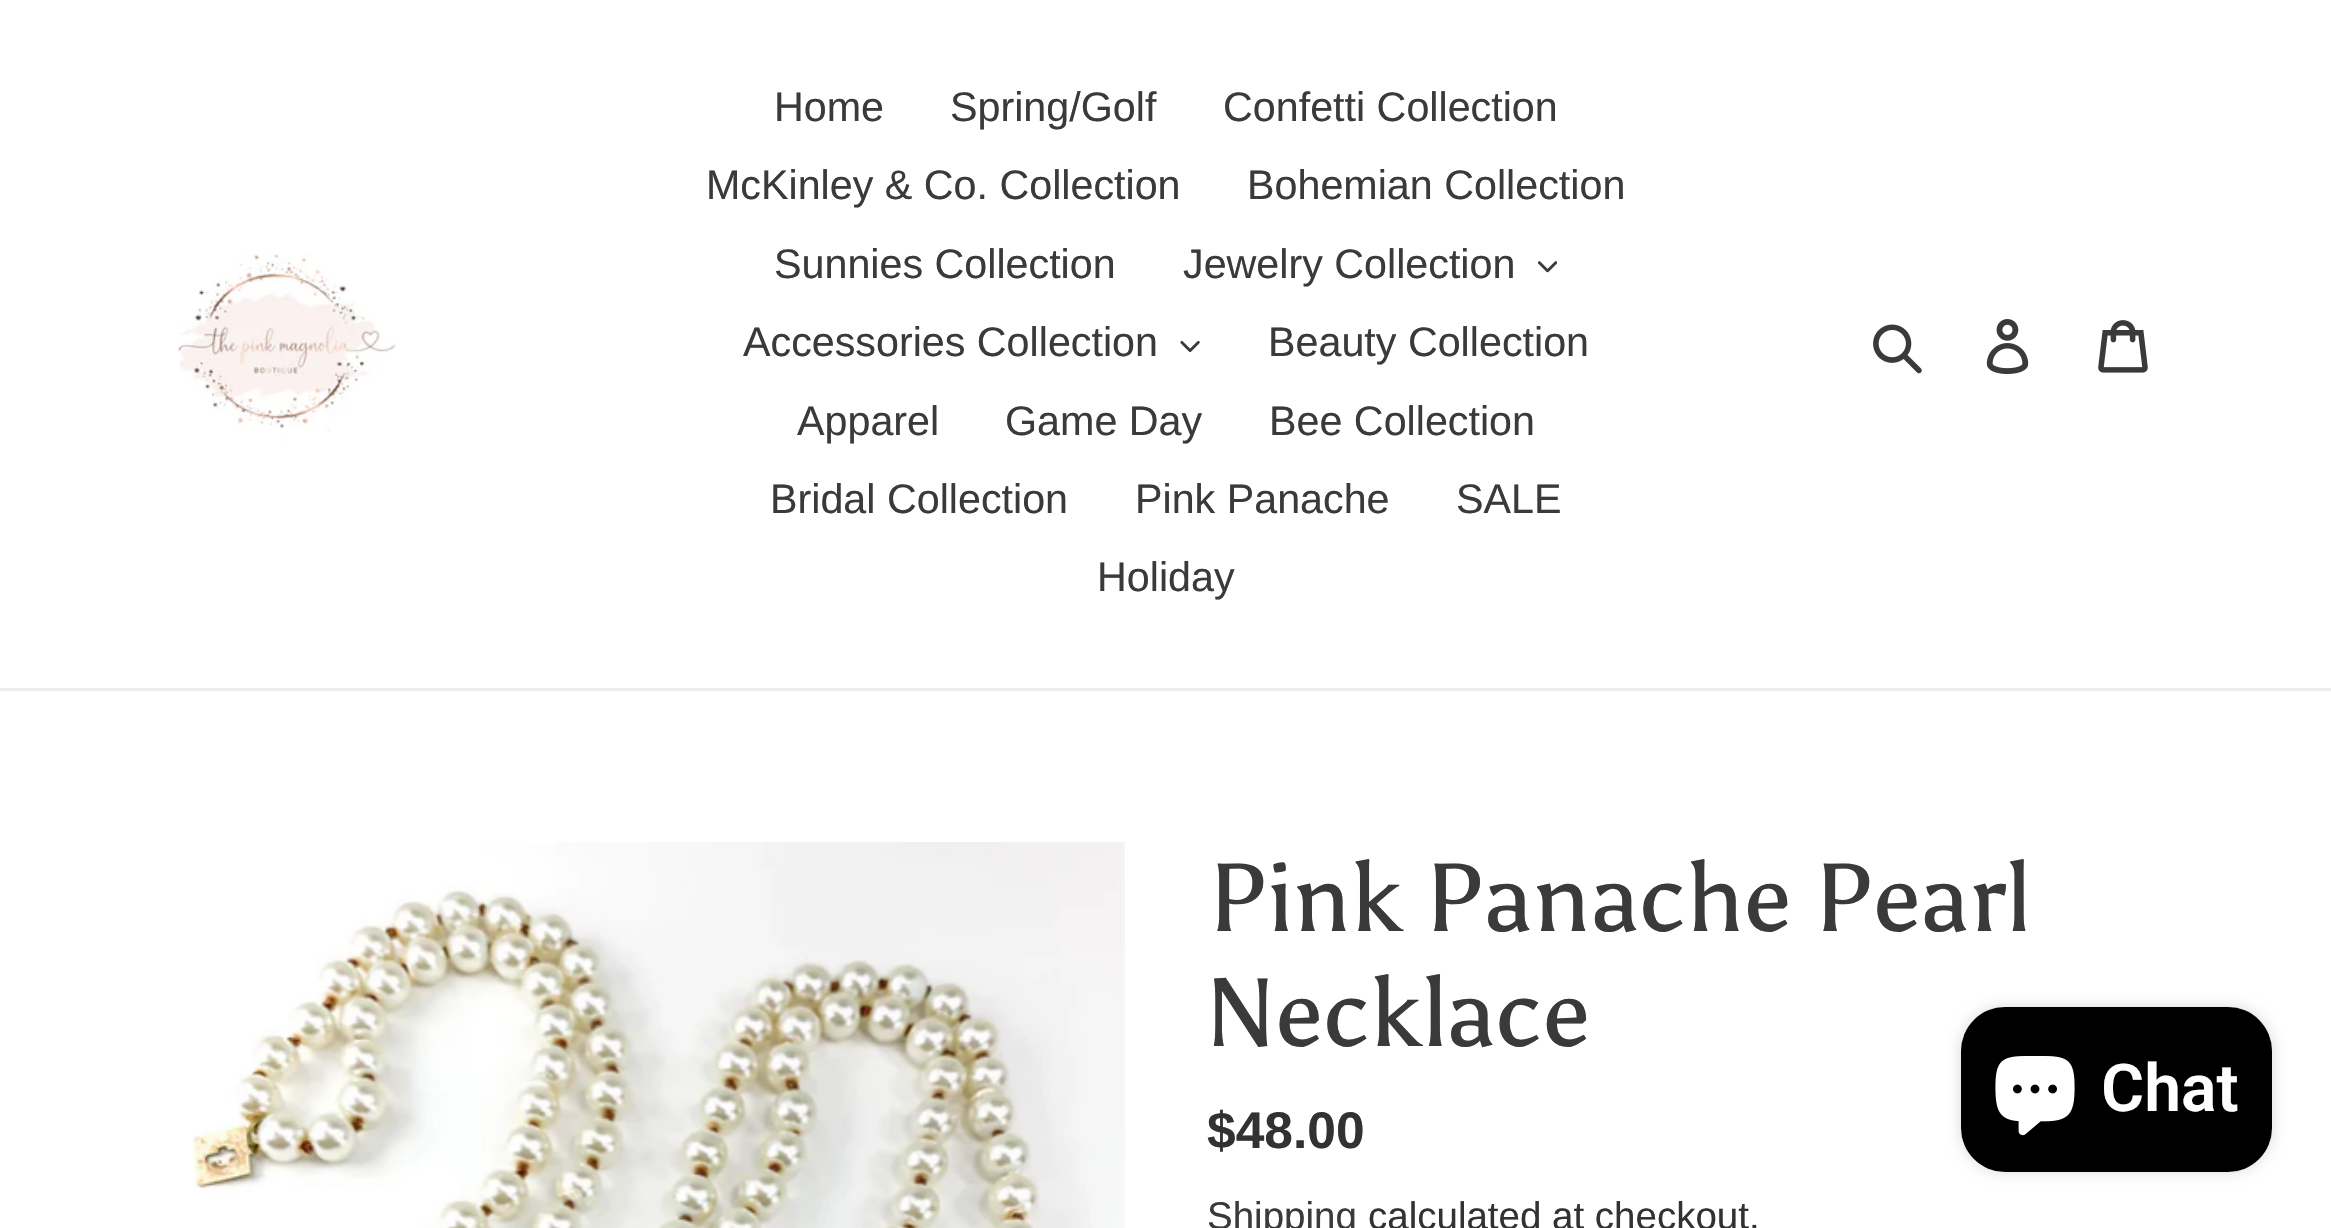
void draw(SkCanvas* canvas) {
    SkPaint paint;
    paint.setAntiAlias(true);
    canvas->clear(0xFFFFFFFF);
    paint.setColor(0xFFEBEBEB);
    canvas->drawRect(SkRect::MakeXYWH(0, 688, 2331, 3), paint);
    canvas->drawImageRect(SkImages::DeferredFromEncodedData(SkData::MakeFromFileName("img1.png")), SkRect::MakeXYWH(178, 254, 218, 187), SkSamplingOptions());
    SkFont font1(fontMgr->matchFamilyStyle("Liberation Sans", SkFontStyle::Normal()), 41.25f);
    font1.setSubpixel(true);
    paint.setColor(0xFF3A3A3A);
    canvas->drawString("Home", 774, 121, font1, paint);
    canvas->drawString("Spring/Golf", 950, 121, font1, paint);
    canvas->drawString("Confetti Collection", 1223, 121, font1, paint);
    canvas->drawString("McKinley & Co. Collection", 706, 199, font1, paint);
    canvas->drawString("Bohemian Collection", 1247, 199, font1, paint);
    canvas->drawString("Sunnies Collection", 774, 278, font1, paint);
    canvas->drawString("Jewelry Collection", 1183, 278, font1, paint);
    canvas->drawImageRect(SkImages::DeferredFromEncodedData(SkData::MakeFromFileName("img2.png")), SkRect::MakeXYWH(1537, 261, 20, 12), SkSamplingOptions());
    canvas->drawString("Accessories Collection", 743, 356, font1, paint);
    canvas->drawImageRect(SkImages::DeferredFromEncodedData(SkData::MakeFromFileName("img3.png")), SkRect::MakeXYWH(1180, 341, 20, 11), SkSamplingOptions());
    canvas->drawString("Beauty Collection", 1268, 356, font1, paint);
    canvas->drawString("Apparel", 797, 435, font1, paint);
    canvas->drawString("Game Day", 1005, 435, font1, paint);
    canvas->drawString("Bee Collection", 1269, 435, font1, paint);
    canvas->drawString("Bridal Collection", 770, 513, font1, paint);
    canvas->drawString("Pink Panache", 1135, 513, font1, paint);
    canvas->drawString("SALE", 1456, 513, font1, paint);
    canvas->drawString("Holiday", 1097, 591, font1, paint);
    canvas->drawImageRect(SkImages::DeferredFromEncodedData(SkData::MakeFromFileName("img4.png")), SkRect::MakeXYWH(1873, 324, 49, 50), SkSamplingOptions());
    canvas->drawImageRect(SkImages::DeferredFromEncodedData(SkData::MakeFromFileName("img5.png")), SkRect::MakeXYWH(1986, 319, 43, 55), SkSamplingOptions());
    canvas->drawImageRect(SkImages::DeferredFromEncodedData(SkData::MakeFromFileName("img6.png")), SkRect::MakeXYWH(2098, 320, 50, 53), SkSamplingOptions());
    canvas->drawImageRect(SkImages::DeferredFromEncodedData(SkData::MakeFromFileName("img7.png")), SkRect::MakeXYWH(192, 842, 933, 386), SkSamplingOptions());
    SkFont font2(fontMgr->matchFamilyStyle("Asul", SkFontStyle::Normal()), 96.25f);
    font2.setSubpixel(true);
    canvas->drawString("Pink Panache Pearl", 1207, 931, font2, paint);
    canvas->drawString("Necklace", 1207, 1046, font2, paint);
    SkFont font3(fontMgr->matchFamilyStyle("Liberation Sans", SkFontStyle::Bold()), 51.5f);
    font3.setSubpixel(true);
    paint.setColor(0xFF333232);
    canvas->drawString("$48.00", 1207, 1148, font3, paint);
    SkFont font4(fontMgr->matchFamilyStyle("Liberation Sans", SkFontStyle::Normal()), 38.5f);
    font4.setSubpixel(true);
    paint.setColor(0xFF3A3A3A);
    canvas->drawString("Shipping", 1207, 1229, font4, paint);
    paint.setColor(0xFF333232);
    canvas->drawString("calculated at checkout.", 1368, 1229, font4, paint);
    paint.setColor(0x26000000);
    paint.setMaskFilter(SkMaskFilter::MakeBlur(kNormal_SkBlurStyle, 7));
    canvas->drawRoundRect(SkRect::MakeXYWH(1961, 1007, 311, 165), 44, 44, paint);
    paint.setMaskFilter(nullptr);
    paint.setColor(0xFF000000);
    canvas->drawRoundRect(SkRect::MakeXYWH(1961, 1007, 311, 165), 44, 44, paint);
    canvas->drawImageRect(SkImages::DeferredFromEncodedData(SkData::MakeFromFileName("img8.png")), SkRect::MakeXYWH(1995, 1056, 80, 80), SkSamplingOptions());
    SkFont font5(fontMgr->matchFamilyStyle("Roboto", SkFontStyle(600, SkFontStyle::kNormal_Width, SkFontStyle::kUpright_Slant)), 66);
    font5.setSubpixel(true);
    paint.setColor(0xFFFFFFFF);
    canvas->drawString("Chat", 2101, 1111, font5, paint);
}
